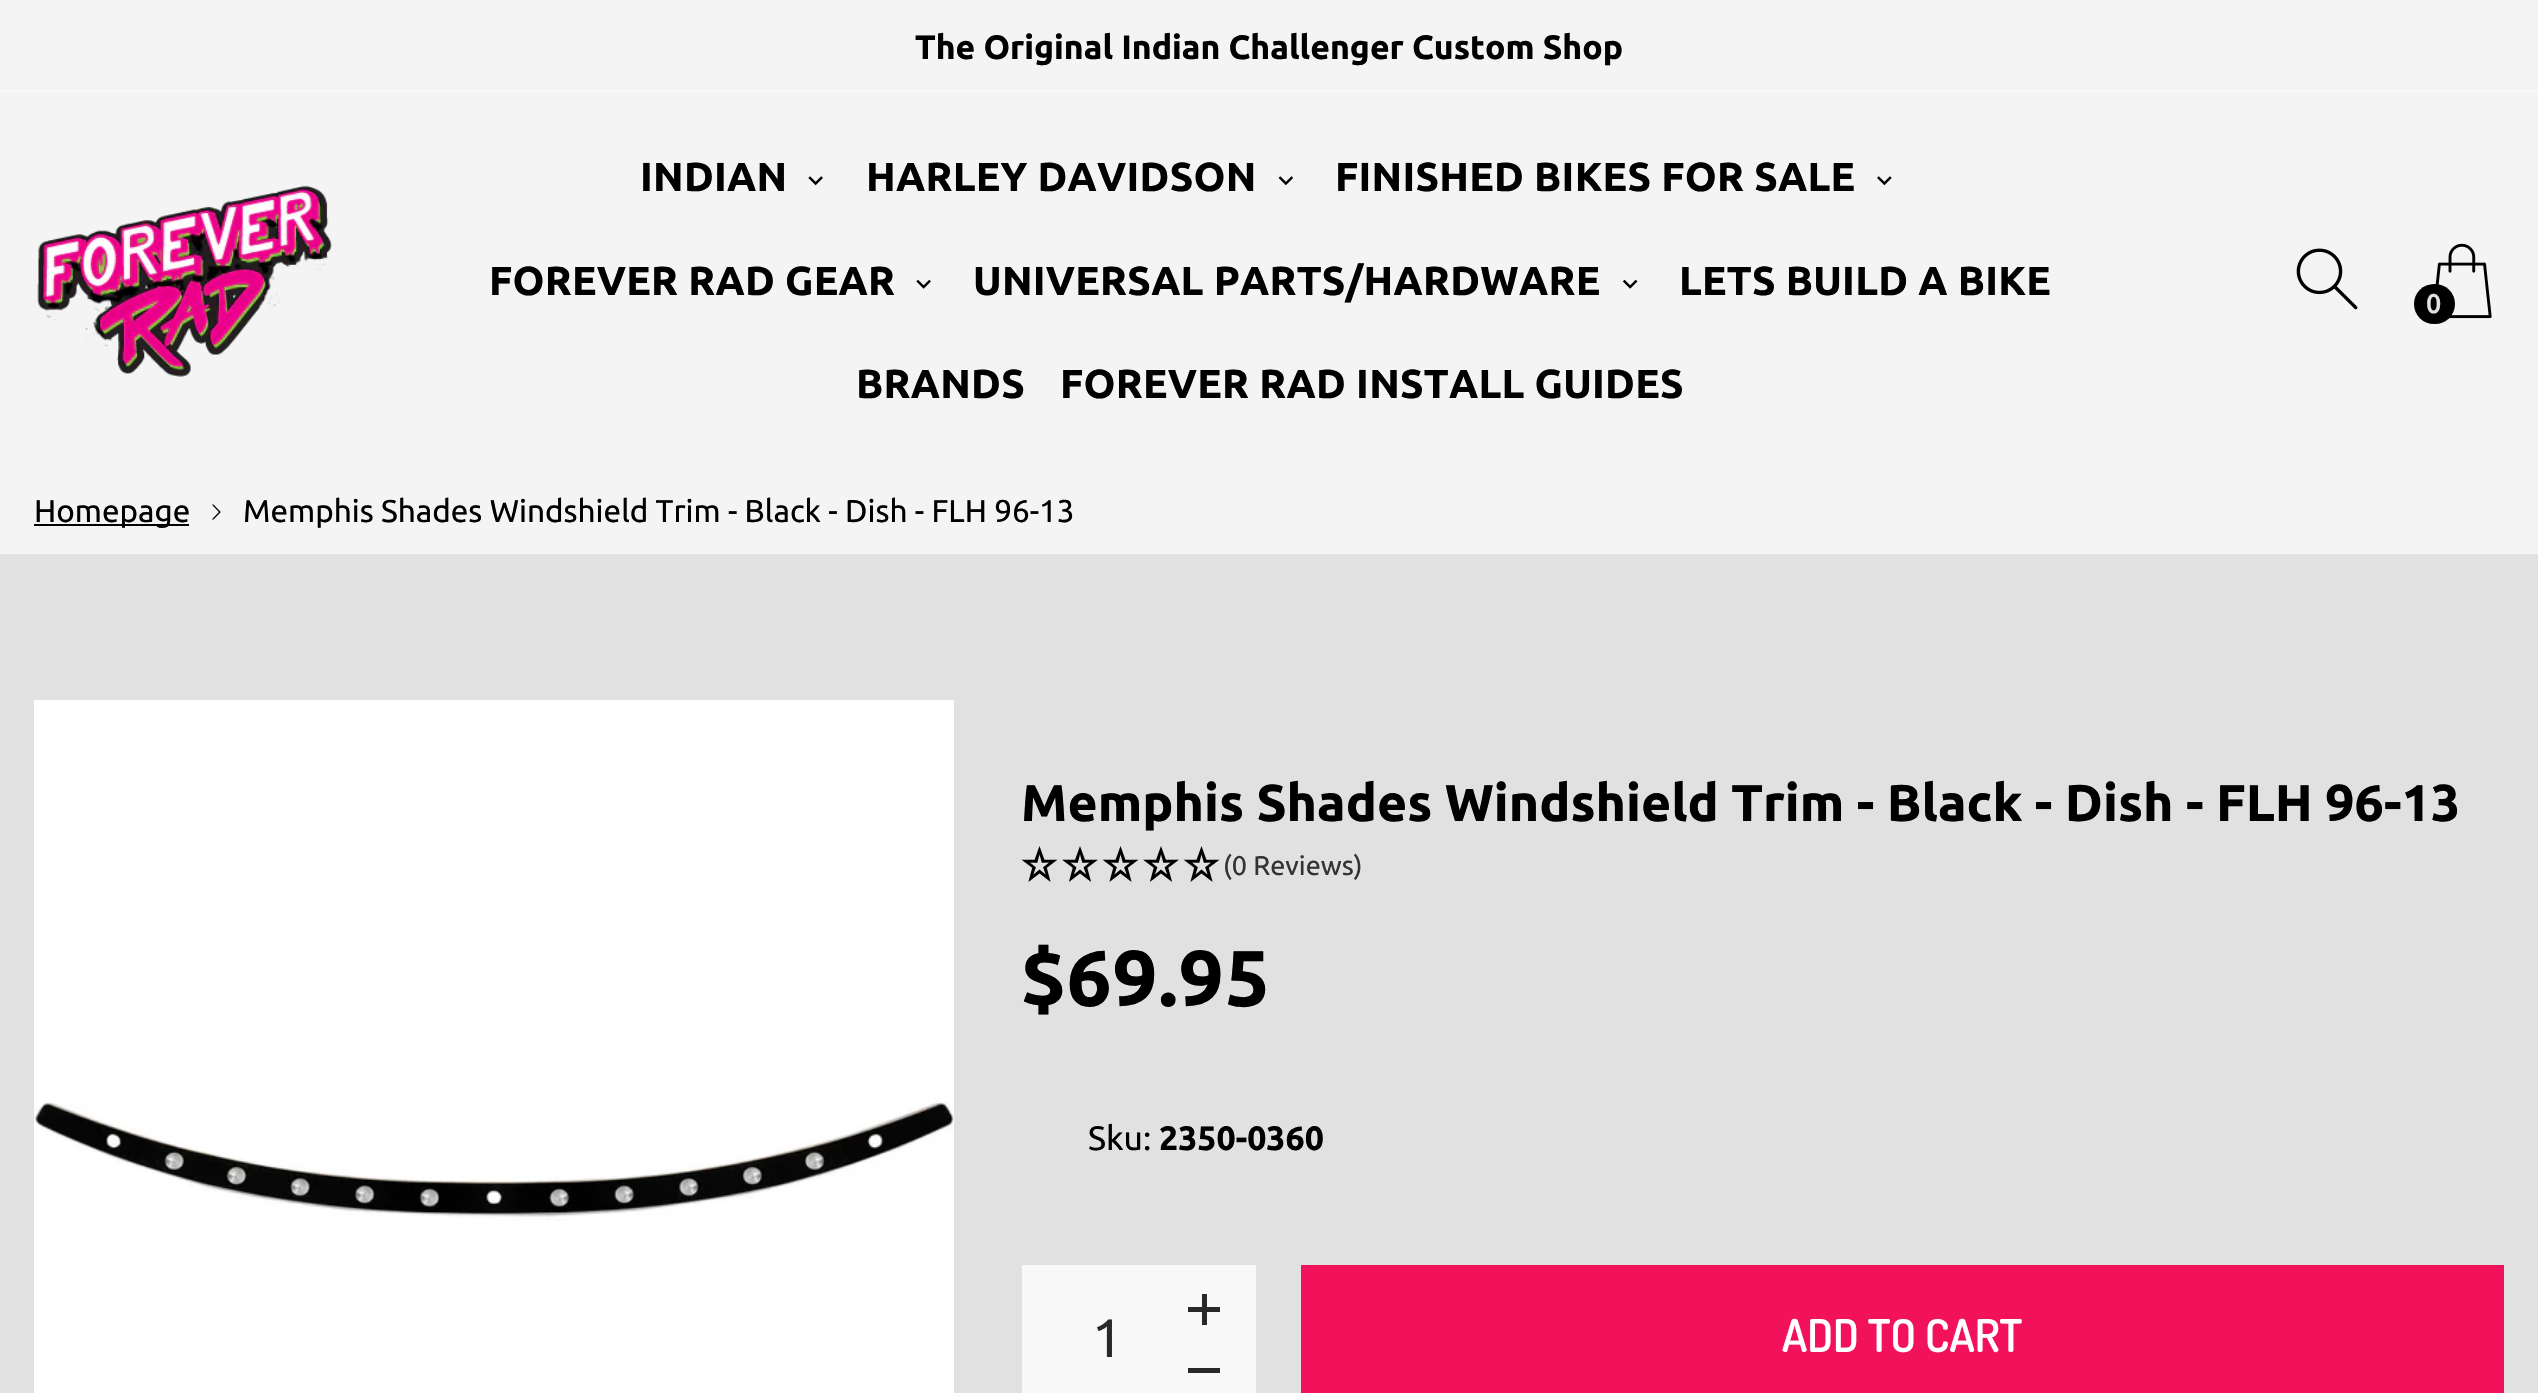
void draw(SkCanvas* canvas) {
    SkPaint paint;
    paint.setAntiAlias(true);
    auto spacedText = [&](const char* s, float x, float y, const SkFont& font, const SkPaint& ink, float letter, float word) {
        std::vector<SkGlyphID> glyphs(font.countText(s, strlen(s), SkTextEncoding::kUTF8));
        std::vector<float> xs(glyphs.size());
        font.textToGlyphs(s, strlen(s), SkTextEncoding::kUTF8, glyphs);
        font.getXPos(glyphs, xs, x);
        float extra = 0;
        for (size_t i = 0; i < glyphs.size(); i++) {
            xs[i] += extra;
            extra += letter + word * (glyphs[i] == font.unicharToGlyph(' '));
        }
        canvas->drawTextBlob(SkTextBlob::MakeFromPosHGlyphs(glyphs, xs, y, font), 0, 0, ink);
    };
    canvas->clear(0xFFE1E1E1);
    paint.setColor(0xFFF4F4F5);
    canvas->drawRect(SkRect::MakeXYWH(0, 0, 2538, 554), paint);
    paint.setColor(0xFFF8F8F8);
    canvas->drawRect(SkRect::MakeXYWH(0, 90, 2538, 2), paint);
    SkFont font1(fontMgr->matchFamilyStyle("Ubuntu", SkFontStyle::Bold()), 33.75f);
    font1.setSubpixel(true);
    paint.setColor(0xFF000000);
    canvas->drawString("The Original Indian Challenger Custom Shop", 915, 59, font1, paint);
    canvas->drawImageRect(SkImages::DeferredFromEncodedData(SkData::MakeFromFileName("img1.png")), SkRect::MakeXYWH(37, 185, 295, 192), SkSamplingOptions());
    SkFont font2(fontMgr->matchFamilyStyle("Ubuntu", SkFontStyle::Bold()), 40.5f);
    font2.setSubpixel(true);
    spacedText("INDIAN", 640, 191, font2, paint, 0.25f, 0);
    canvas->drawImageRect(SkImages::DeferredFromEncodedData(SkData::MakeFromFileName("img2.png")), SkRect::MakeXYWH(808, 176, 15, 10), SkSamplingOptions());
    spacedText("HARLEY DAVIDSON", 866, 191, font2, paint, 0.25f, 0);
    canvas->drawImageRect(SkImages::DeferredFromEncodedData(SkData::MakeFromFileName("img3.png")), SkRect::MakeXYWH(1278, 176, 16, 10), SkSamplingOptions());
    spacedText("FINISHED BIKES FOR SALE", 1335, 191, font2, paint, 0.25f, 0);
    canvas->drawImageRect(SkImages::DeferredFromEncodedData(SkData::MakeFromFileName("img4.png")), SkRect::MakeXYWH(1877, 176, 15, 10), SkSamplingOptions());
    spacedText("FOREVER RAD GEAR", 489, 295, font2, paint, 0.25f, 0);
    canvas->drawImageRect(SkImages::DeferredFromEncodedData(SkData::MakeFromFileName("img5.png")), SkRect::MakeXYWH(916, 279, 15, 10), SkSamplingOptions());
    spacedText("UNIVERSAL PARTS/HARDWARE", 973, 295, font2, paint, 0.25f, 0);
    canvas->drawImageRect(SkImages::DeferredFromEncodedData(SkData::MakeFromFileName("img6.png")), SkRect::MakeXYWH(1622, 279, 16, 10), SkSamplingOptions());
    spacedText("LETS BUILD A BIKE", 1679, 295, font2, paint, 0.25f, 0);
    spacedText("BRANDS", 856, 398, font2, paint, 0.25f, 0);
    spacedText("FOREVER RAD INSTALL GUIDES", 1060, 398, font2, paint, 0.25f, 0);
    canvas->drawImageRect(SkImages::DeferredFromEncodedData(SkData::MakeFromFileName("img7.png")), SkRect::MakeXYWH(2296, 248, 62, 62), SkSamplingOptions());
    canvas->drawImageRect(SkImages::DeferredFromEncodedData(SkData::MakeFromFileName("img8.png")), SkRect::MakeXYWH(2435, 243, 57, 76), SkSamplingOptions());
    canvas->drawRoundRect(SkRect::MakeXYWH(2414, 284, 41, 40), 20, 20, paint);
    SkFont font3(fontMgr->matchFamilyStyle("Ubuntu", SkFontStyle(500, SkFontStyle::kNormal_Width, SkFontStyle::kUpright_Slant)), 27);
    font3.setSubpixel(true);
    paint.setColor(0xFFE1E1E1);
    canvas->drawString("0", 2426, 313, font3, paint);
    paint.setColor(0xFF000000);
    canvas->drawRect(SkRect::MakeXYWH(34, 524, 155, 2), paint);
    SkFont font4(fontMgr->matchFamilyStyle("Ubuntu", SkFontStyle::Normal()), 31.5f);
    font4.setSubpixel(true);
    canvas->drawString("Homepage", 34, 522, font4, paint);
    canvas->drawImageRect(SkImages::DeferredFromEncodedData(SkData::MakeFromFileName("img9.png")), SkRect::MakeXYWH(212, 504, 9, 16), SkSamplingOptions());
    canvas->drawString("Memphis Shades Windshield Trim - Black - Dish - FLH 96-13", 243, 522, font4, paint);
    canvas->drawImageRect(SkImages::DeferredFromEncodedData(SkData::MakeFromFileName("img10.png")), SkRect::MakeXYWH(34, 700, 920, 693), SkSamplingOptions());
    SkFont font5(fontMgr->matchFamilyStyle("Ubuntu", SkFontStyle::Bold()), 51.75f);
    font5.setSubpixel(true);
    canvas->drawString("Memphis Shades Windshield Trim - Black - Dish - FLH 96-13", 1021, 821, font5, paint);
    canvas->drawImageRect(SkImages::DeferredFromEncodedData(SkData::MakeFromFileName("img11.png")), SkRect::MakeXYWH(1021, 846, 37, 36), SkSamplingOptions());
    canvas->drawImageRect(SkImages::DeferredFromEncodedData(SkData::MakeFromFileName("img12.png")), SkRect::MakeXYWH(1062, 846, 36, 36), SkSamplingOptions());
    canvas->drawImageRect(SkImages::DeferredFromEncodedData(SkData::MakeFromFileName("img11.png")), SkRect::MakeXYWH(1102, 846, 37, 36), SkSamplingOptions());
    canvas->drawImageRect(SkImages::DeferredFromEncodedData(SkData::MakeFromFileName("img12.png")), SkRect::MakeXYWH(1143, 846, 36, 36), SkSamplingOptions());
    canvas->drawImageRect(SkImages::DeferredFromEncodedData(SkData::MakeFromFileName("img11.png")), SkRect::MakeXYWH(1183, 846, 37, 36), SkSamplingOptions());
    SkFont font6(fontMgr->matchFamilyStyle("Ubuntu", SkFontStyle::Normal()), 27);
    font6.setSubpixel(true);
    paint.setColor(0xFF333333);
    canvas->drawString("(0 Reviews)", 1223, 875, font6, paint);
    SkFont font7(fontMgr->matchFamilyStyle("Ubuntu", SkFontStyle::Bold()), 79);
    font7.setSubpixel(true);
    paint.setColor(0xFF000000);
    spacedText("$69.95", 1021, 1006, font7, paint, 1, 0);
    SkFont font8(fontMgr->matchFamilyStyle("Ubuntu", SkFontStyle::Normal()), 33.75f);
    font8.setSubpixel(true);
    canvas->drawString("Sku:", 1088, 1150, font8, paint);
    canvas->drawString("2350-0360", 1159, 1150, font1, paint);
    paint.setColor(0xFFF8F8F8);
    canvas->drawRect(SkRect::MakeXYWH(1022, 1265, 234, 128), paint);
    paint.setColor(0xFF282828);
    canvas->drawRect(SkRect::MakeXYWH(1188, 1307, 32, 5), paint);
    canvas->drawRect(SkRect::MakeXYWH(1202, 1294, 5, 31), paint);
    SkFont font9(fontMgr->matchFamilyStyle("Ubuntu", SkFontStyle::Normal()), 54);
    font9.setSubpixel(true);
    canvas->drawString("1", 1092, 1357, font9, paint);
    canvas->drawRect(SkRect::MakeXYWH(1188, 1368, 32, 5), paint);
    paint.setColor(0xFFF2115B);
    canvas->drawRect(SkRect::MakeXYWH(1301, 1265, 1203, 128), paint);
    SkFont font10(fontMgr->matchFamilyStyle("Dosis", SkFontStyle(600, SkFontStyle::kNormal_Width, SkFontStyle::kUpright_Slant)), 45);
    font10.setSubpixel(true);
    paint.setColor(0xFFFFFFFF);
    canvas->drawString("ADD TO CART", 1782, 1352, font10, paint);
}
